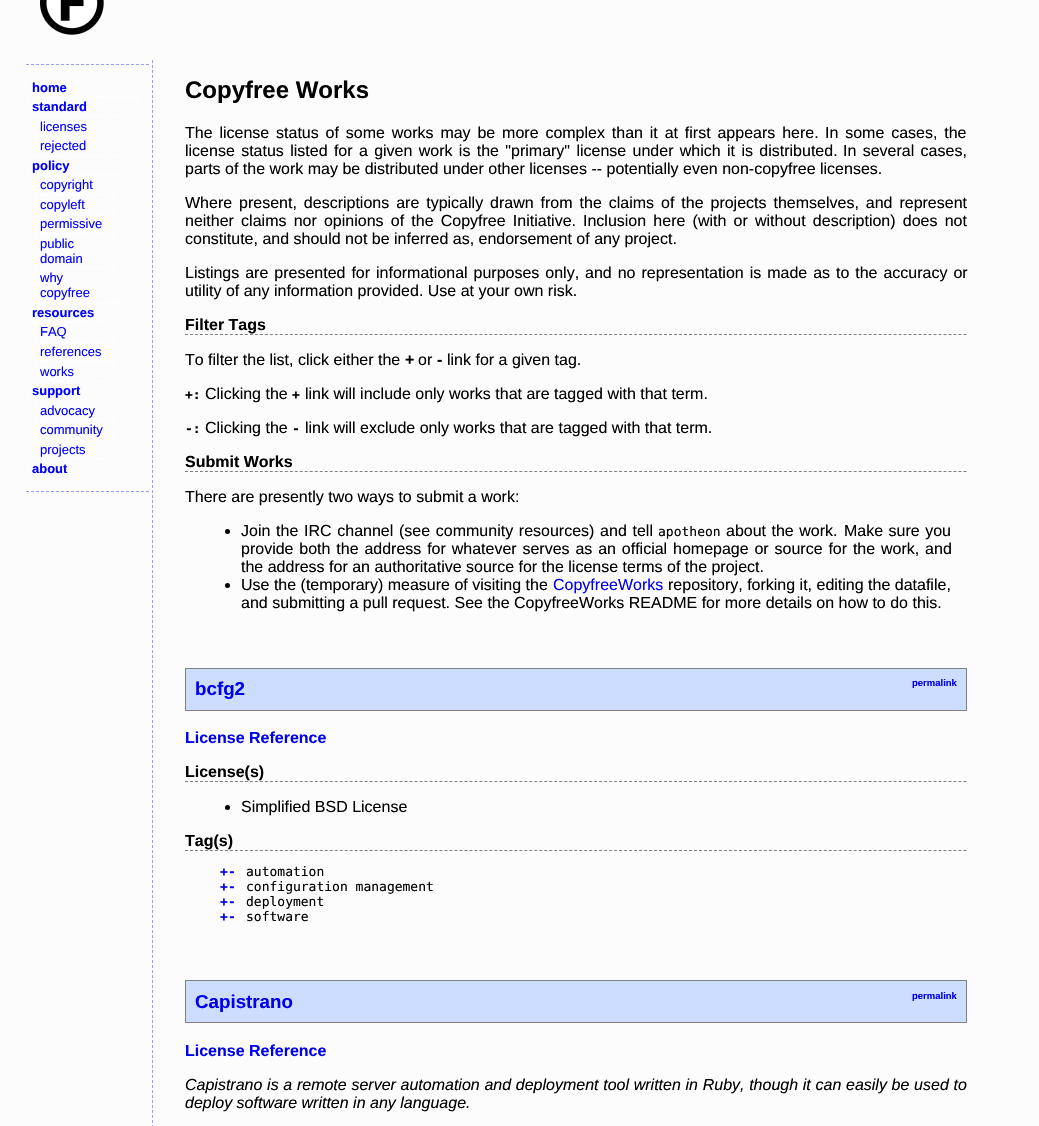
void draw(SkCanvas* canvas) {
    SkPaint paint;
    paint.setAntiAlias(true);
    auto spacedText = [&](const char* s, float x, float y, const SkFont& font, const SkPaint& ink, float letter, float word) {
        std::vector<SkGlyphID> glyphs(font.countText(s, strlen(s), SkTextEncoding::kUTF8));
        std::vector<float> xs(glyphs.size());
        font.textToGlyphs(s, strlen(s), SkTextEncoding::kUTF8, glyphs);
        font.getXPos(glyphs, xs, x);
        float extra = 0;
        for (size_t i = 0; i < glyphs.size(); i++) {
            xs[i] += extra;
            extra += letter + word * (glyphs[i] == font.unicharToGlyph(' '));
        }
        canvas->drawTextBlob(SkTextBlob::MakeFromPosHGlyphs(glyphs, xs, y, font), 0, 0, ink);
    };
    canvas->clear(0xFFFCFCFC);
    canvas->drawImageRect(SkImages::DeferredFromEncodedData(SkData::MakeFromFileName("img1.png")), SkRect::MakeXYWH(40, 0, 64, 35), SkSamplingOptions());
    paint.setStyle(SkPaint::kStroke_Style);
    paint.setStrokeWidth(1);
    paint.setColor(0xFF9999FF);
    paint.setPathEffect(SkDashPathEffect::Make({{3, 2}}, 0));
    canvas->drawPath(SkPathBuilder().moveTo(26, 64.5f).lineTo(149, 64.5f).detach(), paint);
    paint.setPathEffect(nullptr);
    paint.setPathEffect(SkDashPathEffect::Make({{3, 2}}, 0));
    canvas->drawPath(SkPathBuilder().moveTo(26, 491.5f).lineTo(149, 491.5f).detach(), paint);
    paint.setPathEffect(nullptr);
    paint.setColor(0xFFFFFFFF);
    paint.setPathEffect(SkDashPathEffect::Make({{3, 1.95f}}, 0));
    canvas->drawPath(SkPathBuilder().moveTo(27, 77.5f).lineTo(139, 77.5f).detach(), paint);
    paint.setPathEffect(nullptr);
    paint.setPathEffect(SkDashPathEffect::Make({{3, 2.67f}}, 0));
    canvas->drawPath(SkPathBuilder().moveTo(138.5f, 77).lineTo(138.5f, 97).detach(), paint);
    paint.setPathEffect(nullptr);
    paint.setPathEffect(SkDashPathEffect::Make({{3, 1.95f}}, 0));
    canvas->drawPath(SkPathBuilder().moveTo(27, 96.5f).lineTo(139, 96.5f).detach(), paint);
    paint.setPathEffect(nullptr);
    paint.setPathEffect(SkDashPathEffect::Make({{3, 2.67f}}, 0));
    canvas->drawPath(SkPathBuilder().moveTo(27.5f, 77).lineTo(27.5f, 97).detach(), paint);
    paint.setPathEffect(nullptr);
    SkFont font1(fontMgr->matchFamilyStyle("Liberation Sans", SkFontStyle::Bold()), 13);
    font1.setSubpixel(true);
    paint.setStyle(SkPaint::kFill_Style);
    paint.setColor(0xFF0000FF);
    canvas->drawString("home", 32, 92, font1, paint);
    paint.setStyle(SkPaint::kStroke_Style);
    paint.setColor(0xFFFFFFFF);
    paint.setPathEffect(SkDashPathEffect::Make({{3, 1.95f}}, 0));
    canvas->drawPath(SkPathBuilder().moveTo(27, 97.5f).lineTo(139, 97.5f).detach(), paint);
    paint.setPathEffect(nullptr);
    paint.setPathEffect(SkDashPathEffect::Make({{3, 2.33f}}, 0));
    canvas->drawPath(SkPathBuilder().moveTo(138.5f, 97).lineTo(138.5f, 116).detach(), paint);
    paint.setPathEffect(nullptr);
    paint.setPathEffect(SkDashPathEffect::Make({{3, 1.95f}}, 0));
    canvas->drawPath(SkPathBuilder().moveTo(27, 115.5f).lineTo(139, 115.5f).detach(), paint);
    paint.setPathEffect(nullptr);
    paint.setPathEffect(SkDashPathEffect::Make({{3, 2.33f}}, 0));
    canvas->drawPath(SkPathBuilder().moveTo(27.5f, 97).lineTo(27.5f, 116).detach(), paint);
    paint.setPathEffect(nullptr);
    paint.setStyle(SkPaint::kFill_Style);
    paint.setColor(0xFF0000FF);
    canvas->drawString("standard", 32, 111, font1, paint);
    paint.setStyle(SkPaint::kStroke_Style);
    paint.setColor(0xFFFFFFFF);
    paint.setPathEffect(SkDashPathEffect::Make({{3, 2.13f}}, 0));
    canvas->drawPath(SkPathBuilder().moveTo(35, 116.5f).lineTo(115, 116.5f).detach(), paint);
    paint.setPathEffect(nullptr);
    paint.setPathEffect(SkDashPathEffect::Make({{3, 2.67f}}, 0));
    canvas->drawPath(SkPathBuilder().moveTo(114.5f, 116).lineTo(114.5f, 136).detach(), paint);
    paint.setPathEffect(nullptr);
    paint.setPathEffect(SkDashPathEffect::Make({{3, 2.13f}}, 0));
    canvas->drawPath(SkPathBuilder().moveTo(35, 135.5f).lineTo(115, 135.5f).detach(), paint);
    paint.setPathEffect(nullptr);
    paint.setPathEffect(SkDashPathEffect::Make({{3, 2.67f}}, 0));
    canvas->drawPath(SkPathBuilder().moveTo(35.5f, 116).lineTo(35.5f, 136).detach(), paint);
    paint.setPathEffect(nullptr);
    SkFont font2(fontMgr->matchFamilyStyle("Liberation Sans", SkFontStyle::Normal()), 13);
    font2.setSubpixel(true);
    paint.setStyle(SkPaint::kFill_Style);
    paint.setColor(0xFF0000FF);
    canvas->drawString("licenses", 40, 131, font2, paint);
    paint.setStyle(SkPaint::kStroke_Style);
    paint.setColor(0xFFFFFFFF);
    paint.setPathEffect(SkDashPathEffect::Make({{3, 2.13f}}, 0));
    canvas->drawPath(SkPathBuilder().moveTo(35, 136.5f).lineTo(115, 136.5f).detach(), paint);
    paint.setPathEffect(nullptr);
    paint.setPathEffect(SkDashPathEffect::Make({{3, 2.67f}}, 0));
    canvas->drawPath(SkPathBuilder().moveTo(114.5f, 136).lineTo(114.5f, 156).detach(), paint);
    paint.setPathEffect(nullptr);
    paint.setPathEffect(SkDashPathEffect::Make({{3, 2.13f}}, 0));
    canvas->drawPath(SkPathBuilder().moveTo(35, 155.5f).lineTo(115, 155.5f).detach(), paint);
    paint.setPathEffect(nullptr);
    paint.setPathEffect(SkDashPathEffect::Make({{3, 2.67f}}, 0));
    canvas->drawPath(SkPathBuilder().moveTo(35.5f, 136).lineTo(35.5f, 156).detach(), paint);
    paint.setPathEffect(nullptr);
    paint.setStyle(SkPaint::kFill_Style);
    paint.setColor(0xFF0000FF);
    canvas->drawString("rejected", 40, 150, font2, paint);
    paint.setStyle(SkPaint::kStroke_Style);
    paint.setColor(0xFFFFFFFF);
    paint.setPathEffect(SkDashPathEffect::Make({{3, 1.95f}}, 0));
    canvas->drawPath(SkPathBuilder().moveTo(27, 156.5f).lineTo(139, 156.5f).detach(), paint);
    paint.setPathEffect(nullptr);
    paint.setPathEffect(SkDashPathEffect::Make({{3, 2.33f}}, 0));
    canvas->drawPath(SkPathBuilder().moveTo(138.5f, 156).lineTo(138.5f, 175).detach(), paint);
    paint.setPathEffect(nullptr);
    paint.setPathEffect(SkDashPathEffect::Make({{3, 1.95f}}, 0));
    canvas->drawPath(SkPathBuilder().moveTo(27, 174.5f).lineTo(139, 174.5f).detach(), paint);
    paint.setPathEffect(nullptr);
    paint.setPathEffect(SkDashPathEffect::Make({{3, 2.33f}}, 0));
    canvas->drawPath(SkPathBuilder().moveTo(27.5f, 156).lineTo(27.5f, 175).detach(), paint);
    paint.setPathEffect(nullptr);
    paint.setStyle(SkPaint::kFill_Style);
    paint.setColor(0xFF0000FF);
    canvas->drawString("policy", 32, 170, font1, paint);
    paint.setStyle(SkPaint::kStroke_Style);
    paint.setColor(0xFFFFFFFF);
    paint.setPathEffect(SkDashPathEffect::Make({{3, 2.13f}}, 0));
    canvas->drawPath(SkPathBuilder().moveTo(35, 175.5f).lineTo(115, 175.5f).detach(), paint);
    paint.setPathEffect(nullptr);
    paint.setPathEffect(SkDashPathEffect::Make({{3, 2.67f}}, 0));
    canvas->drawPath(SkPathBuilder().moveTo(114.5f, 175).lineTo(114.5f, 195).detach(), paint);
    paint.setPathEffect(nullptr);
    paint.setPathEffect(SkDashPathEffect::Make({{3, 2.13f}}, 0));
    canvas->drawPath(SkPathBuilder().moveTo(35, 194.5f).lineTo(115, 194.5f).detach(), paint);
    paint.setPathEffect(nullptr);
    paint.setPathEffect(SkDashPathEffect::Make({{3, 2.67f}}, 0));
    canvas->drawPath(SkPathBuilder().moveTo(35.5f, 175).lineTo(35.5f, 195).detach(), paint);
    paint.setPathEffect(nullptr);
    paint.setStyle(SkPaint::kFill_Style);
    paint.setColor(0xFF0000FF);
    canvas->drawString("copyright", 40, 189, font2, paint);
    paint.setStyle(SkPaint::kStroke_Style);
    paint.setColor(0xFFFFFFFF);
    paint.setPathEffect(SkDashPathEffect::Make({{3, 2.13f}}, 0));
    canvas->drawPath(SkPathBuilder().moveTo(35, 195.5f).lineTo(115, 195.5f).detach(), paint);
    paint.setPathEffect(nullptr);
    paint.setPathEffect(SkDashPathEffect::Make({{3, 2.33f}}, 0));
    canvas->drawPath(SkPathBuilder().moveTo(114.5f, 195).lineTo(114.5f, 214).detach(), paint);
    paint.setPathEffect(nullptr);
    paint.setPathEffect(SkDashPathEffect::Make({{3, 2.13f}}, 0));
    canvas->drawPath(SkPathBuilder().moveTo(35, 213.5f).lineTo(115, 213.5f).detach(), paint);
    paint.setPathEffect(nullptr);
    paint.setPathEffect(SkDashPathEffect::Make({{3, 2.33f}}, 0));
    canvas->drawPath(SkPathBuilder().moveTo(35.5f, 195).lineTo(35.5f, 214).detach(), paint);
    paint.setPathEffect(nullptr);
    paint.setStyle(SkPaint::kFill_Style);
    paint.setColor(0xFF0000FF);
    canvas->drawString("copyleft", 40, 209, font2, paint);
    paint.setStyle(SkPaint::kStroke_Style);
    paint.setColor(0xFFFFFFFF);
    paint.setPathEffect(SkDashPathEffect::Make({{3, 2.13f}}, 0));
    canvas->drawPath(SkPathBuilder().moveTo(35, 214.5f).lineTo(115, 214.5f).detach(), paint);
    paint.setPathEffect(nullptr);
    paint.setPathEffect(SkDashPathEffect::Make({{3, 2.67f}}, 0));
    canvas->drawPath(SkPathBuilder().moveTo(114.5f, 214).lineTo(114.5f, 234).detach(), paint);
    paint.setPathEffect(nullptr);
    paint.setPathEffect(SkDashPathEffect::Make({{3, 2.13f}}, 0));
    canvas->drawPath(SkPathBuilder().moveTo(35, 233.5f).lineTo(115, 233.5f).detach(), paint);
    paint.setPathEffect(nullptr);
    paint.setPathEffect(SkDashPathEffect::Make({{3, 2.67f}}, 0));
    canvas->drawPath(SkPathBuilder().moveTo(35.5f, 214).lineTo(35.5f, 234).detach(), paint);
    paint.setPathEffect(nullptr);
    paint.setStyle(SkPaint::kFill_Style);
    paint.setColor(0xFF0000FF);
    canvas->drawString("permissive", 40, 228, font2, paint);
    paint.setStyle(SkPaint::kStroke_Style);
    paint.setColor(0xFFFFFFFF);
    paint.setPathEffect(SkDashPathEffect::Make({{3, 2.13f}}, 0));
    canvas->drawPath(SkPathBuilder().moveTo(35, 234.5f).lineTo(115, 234.5f).detach(), paint);
    paint.setPathEffect(nullptr);
    paint.setPathEffect(SkDashPathEffect::Make({{3, 2.17f}}, 0));
    canvas->drawPath(SkPathBuilder().moveTo(114.5f, 234).lineTo(114.5f, 268).detach(), paint);
    paint.setPathEffect(nullptr);
    paint.setPathEffect(SkDashPathEffect::Make({{3, 2.13f}}, 0));
    canvas->drawPath(SkPathBuilder().moveTo(35, 267.5f).lineTo(115, 267.5f).detach(), paint);
    paint.setPathEffect(nullptr);
    paint.setPathEffect(SkDashPathEffect::Make({{3, 2.17f}}, 0));
    canvas->drawPath(SkPathBuilder().moveTo(35.5f, 234).lineTo(35.5f, 268).detach(), paint);
    paint.setPathEffect(nullptr);
    paint.setStyle(SkPaint::kFill_Style);
    paint.setColor(0xFF0000FF);
    canvas->drawString("public", 40, 248, font2, paint);
    canvas->drawString("domain", 40, 263, font2, paint);
    paint.setStyle(SkPaint::kStroke_Style);
    paint.setColor(0xFFFFFFFF);
    paint.setPathEffect(SkDashPathEffect::Make({{3, 2.13f}}, 0));
    canvas->drawPath(SkPathBuilder().moveTo(35, 268.5f).lineTo(115, 268.5f).detach(), paint);
    paint.setPathEffect(nullptr);
    paint.setPathEffect(SkDashPathEffect::Make({{3, 2.33f}}, 0));
    canvas->drawPath(SkPathBuilder().moveTo(114.5f, 268).lineTo(114.5f, 303).detach(), paint);
    paint.setPathEffect(nullptr);
    paint.setPathEffect(SkDashPathEffect::Make({{3, 2.13f}}, 0));
    canvas->drawPath(SkPathBuilder().moveTo(35, 302.5f).lineTo(115, 302.5f).detach(), paint);
    paint.setPathEffect(nullptr);
    paint.setPathEffect(SkDashPathEffect::Make({{3, 2.33f}}, 0));
    canvas->drawPath(SkPathBuilder().moveTo(35.5f, 268).lineTo(35.5f, 303).detach(), paint);
    paint.setPathEffect(nullptr);
    paint.setStyle(SkPaint::kFill_Style);
    paint.setColor(0xFF0000FF);
    canvas->drawString("why", 40, 282, font2, paint);
    canvas->drawString("copyfree", 40, 297, font2, paint);
    paint.setStyle(SkPaint::kStroke_Style);
    paint.setColor(0xFFFFFFFF);
    paint.setPathEffect(SkDashPathEffect::Make({{3, 1.95f}}, 0));
    canvas->drawPath(SkPathBuilder().moveTo(27, 303.5f).lineTo(139, 303.5f).detach(), paint);
    paint.setPathEffect(nullptr);
    paint.setPathEffect(SkDashPathEffect::Make({{3, 2.33f}}, 0));
    canvas->drawPath(SkPathBuilder().moveTo(138.5f, 303).lineTo(138.5f, 322).detach(), paint);
    paint.setPathEffect(nullptr);
    paint.setPathEffect(SkDashPathEffect::Make({{3, 1.95f}}, 0));
    canvas->drawPath(SkPathBuilder().moveTo(27, 321.5f).lineTo(139, 321.5f).detach(), paint);
    paint.setPathEffect(nullptr);
    paint.setPathEffect(SkDashPathEffect::Make({{3, 2.33f}}, 0));
    canvas->drawPath(SkPathBuilder().moveTo(27.5f, 303).lineTo(27.5f, 322).detach(), paint);
    paint.setPathEffect(nullptr);
    paint.setStyle(SkPaint::kFill_Style);
    paint.setColor(0xFF0000FF);
    canvas->drawString("resources", 32, 317, font1, paint);
    paint.setStyle(SkPaint::kStroke_Style);
    paint.setColor(0xFFFFFFFF);
    paint.setPathEffect(SkDashPathEffect::Make({{3, 2.13f}}, 0));
    canvas->drawPath(SkPathBuilder().moveTo(35, 322.5f).lineTo(115, 322.5f).detach(), paint);
    paint.setPathEffect(nullptr);
    paint.setPathEffect(SkDashPathEffect::Make({{3, 2.67f}}, 0));
    canvas->drawPath(SkPathBuilder().moveTo(114.5f, 322).lineTo(114.5f, 342).detach(), paint);
    paint.setPathEffect(nullptr);
    paint.setPathEffect(SkDashPathEffect::Make({{3, 2.13f}}, 0));
    canvas->drawPath(SkPathBuilder().moveTo(35, 341.5f).lineTo(115, 341.5f).detach(), paint);
    paint.setPathEffect(nullptr);
    paint.setPathEffect(SkDashPathEffect::Make({{3, 2.67f}}, 0));
    canvas->drawPath(SkPathBuilder().moveTo(35.5f, 322).lineTo(35.5f, 342).detach(), paint);
    paint.setPathEffect(nullptr);
    paint.setStyle(SkPaint::kFill_Style);
    paint.setColor(0xFF0000FF);
    canvas->drawString("FAQ", 40, 336, font2, paint);
    paint.setStyle(SkPaint::kStroke_Style);
    paint.setColor(0xFFFFFFFF);
    paint.setPathEffect(SkDashPathEffect::Make({{3, 2.13f}}, 0));
    canvas->drawPath(SkPathBuilder().moveTo(35, 342.5f).lineTo(115, 342.5f).detach(), paint);
    paint.setPathEffect(nullptr);
    paint.setPathEffect(SkDashPathEffect::Make({{3, 2.33f}}, 0));
    canvas->drawPath(SkPathBuilder().moveTo(114.5f, 342).lineTo(114.5f, 361).detach(), paint);
    paint.setPathEffect(nullptr);
    paint.setPathEffect(SkDashPathEffect::Make({{3, 2.13f}}, 0));
    canvas->drawPath(SkPathBuilder().moveTo(35, 360.5f).lineTo(115, 360.5f).detach(), paint);
    paint.setPathEffect(nullptr);
    paint.setPathEffect(SkDashPathEffect::Make({{3, 2.33f}}, 0));
    canvas->drawPath(SkPathBuilder().moveTo(35.5f, 342).lineTo(35.5f, 361).detach(), paint);
    paint.setPathEffect(nullptr);
    paint.setStyle(SkPaint::kFill_Style);
    paint.setColor(0xFF0000FF);
    canvas->drawString("references", 40, 356, font2, paint);
    paint.setStyle(SkPaint::kStroke_Style);
    paint.setColor(0xFFFFFFFF);
    paint.setPathEffect(SkDashPathEffect::Make({{3, 2.13f}}, 0));
    canvas->drawPath(SkPathBuilder().moveTo(35, 361.5f).lineTo(115, 361.5f).detach(), paint);
    paint.setPathEffect(nullptr);
    paint.setPathEffect(SkDashPathEffect::Make({{3, 2.67f}}, 0));
    canvas->drawPath(SkPathBuilder().moveTo(114.5f, 361).lineTo(114.5f, 381).detach(), paint);
    paint.setPathEffect(nullptr);
    paint.setPathEffect(SkDashPathEffect::Make({{3, 2.13f}}, 0));
    canvas->drawPath(SkPathBuilder().moveTo(35, 380.5f).lineTo(115, 380.5f).detach(), paint);
    paint.setPathEffect(nullptr);
    paint.setPathEffect(SkDashPathEffect::Make({{3, 2.67f}}, 0));
    canvas->drawPath(SkPathBuilder().moveTo(35.5f, 361).lineTo(35.5f, 381).detach(), paint);
    paint.setPathEffect(nullptr);
    paint.setStyle(SkPaint::kFill_Style);
    paint.setColor(0xFF0000FF);
    canvas->drawString("works", 40, 376, font2, paint);
    paint.setStyle(SkPaint::kStroke_Style);
    paint.setColor(0xFFFFFFFF);
    paint.setPathEffect(SkDashPathEffect::Make({{3, 1.95f}}, 0));
    canvas->drawPath(SkPathBuilder().moveTo(27, 381.5f).lineTo(139, 381.5f).detach(), paint);
    paint.setPathEffect(nullptr);
    paint.setPathEffect(SkDashPathEffect::Make({{3, 2.33f}}, 0));
    canvas->drawPath(SkPathBuilder().moveTo(138.5f, 381).lineTo(138.5f, 400).detach(), paint);
    paint.setPathEffect(nullptr);
    paint.setPathEffect(SkDashPathEffect::Make({{3, 1.95f}}, 0));
    canvas->drawPath(SkPathBuilder().moveTo(27, 399.5f).lineTo(139, 399.5f).detach(), paint);
    paint.setPathEffect(nullptr);
    paint.setPathEffect(SkDashPathEffect::Make({{3, 2.33f}}, 0));
    canvas->drawPath(SkPathBuilder().moveTo(27.5f, 381).lineTo(27.5f, 400).detach(), paint);
    paint.setPathEffect(nullptr);
    paint.setStyle(SkPaint::kFill_Style);
    paint.setColor(0xFF0000FF);
    canvas->drawString("support", 32, 395, font1, paint);
    paint.setStyle(SkPaint::kStroke_Style);
    paint.setColor(0xFFFFFFFF);
    paint.setPathEffect(SkDashPathEffect::Make({{3, 2.13f}}, 0));
    canvas->drawPath(SkPathBuilder().moveTo(35, 400.5f).lineTo(115, 400.5f).detach(), paint);
    paint.setPathEffect(nullptr);
    paint.setPathEffect(SkDashPathEffect::Make({{3, 2.67f}}, 0));
    canvas->drawPath(SkPathBuilder().moveTo(114.5f, 400).lineTo(114.5f, 420).detach(), paint);
    paint.setPathEffect(nullptr);
    paint.setPathEffect(SkDashPathEffect::Make({{3, 2.13f}}, 0));
    canvas->drawPath(SkPathBuilder().moveTo(35, 419.5f).lineTo(115, 419.5f).detach(), paint);
    paint.setPathEffect(nullptr);
    paint.setPathEffect(SkDashPathEffect::Make({{3, 2.67f}}, 0));
    canvas->drawPath(SkPathBuilder().moveTo(35.5f, 400).lineTo(35.5f, 420).detach(), paint);
    paint.setPathEffect(nullptr);
    paint.setStyle(SkPaint::kFill_Style);
    paint.setColor(0xFF0000FF);
    canvas->drawString("advocacy", 40, 415, font2, paint);
    paint.setStyle(SkPaint::kStroke_Style);
    paint.setColor(0xFFFFFFFF);
    paint.setPathEffect(SkDashPathEffect::Make({{3, 2.13f}}, 0));
    canvas->drawPath(SkPathBuilder().moveTo(35, 420.5f).lineTo(115, 420.5f).detach(), paint);
    paint.setPathEffect(nullptr);
    paint.setPathEffect(SkDashPathEffect::Make({{3, 2.33f}}, 0));
    canvas->drawPath(SkPathBuilder().moveTo(114.5f, 420).lineTo(114.5f, 439).detach(), paint);
    paint.setPathEffect(nullptr);
    paint.setPathEffect(SkDashPathEffect::Make({{3, 2.13f}}, 0));
    canvas->drawPath(SkPathBuilder().moveTo(35, 438.5f).lineTo(115, 438.5f).detach(), paint);
    paint.setPathEffect(nullptr);
    paint.setPathEffect(SkDashPathEffect::Make({{3, 2.33f}}, 0));
    canvas->drawPath(SkPathBuilder().moveTo(35.5f, 420).lineTo(35.5f, 439).detach(), paint);
    paint.setPathEffect(nullptr);
    paint.setStyle(SkPaint::kFill_Style);
    paint.setColor(0xFF0000FF);
    canvas->drawString("community", 40, 434, font2, paint);
    paint.setStyle(SkPaint::kStroke_Style);
    paint.setColor(0xFFFFFFFF);
    paint.setPathEffect(SkDashPathEffect::Make({{3, 2.13f}}, 0));
    canvas->drawPath(SkPathBuilder().moveTo(35, 439.5f).lineTo(115, 439.5f).detach(), paint);
    paint.setPathEffect(nullptr);
    paint.setPathEffect(SkDashPathEffect::Make({{3, 2.67f}}, 0));
    canvas->drawPath(SkPathBuilder().moveTo(114.5f, 439).lineTo(114.5f, 459).detach(), paint);
    paint.setPathEffect(nullptr);
    paint.setPathEffect(SkDashPathEffect::Make({{3, 2.13f}}, 0));
    canvas->drawPath(SkPathBuilder().moveTo(35, 458.5f).lineTo(115, 458.5f).detach(), paint);
    paint.setPathEffect(nullptr);
    paint.setPathEffect(SkDashPathEffect::Make({{3, 2.67f}}, 0));
    canvas->drawPath(SkPathBuilder().moveTo(35.5f, 439).lineTo(35.5f, 459).detach(), paint);
    paint.setPathEffect(nullptr);
    paint.setStyle(SkPaint::kFill_Style);
    paint.setColor(0xFF0000FF);
    canvas->drawString("projects", 40, 454, font2, paint);
    paint.setStyle(SkPaint::kStroke_Style);
    paint.setColor(0xFFFFFFFF);
    paint.setPathEffect(SkDashPathEffect::Make({{3, 1.95f}}, 0));
    canvas->drawPath(SkPathBuilder().moveTo(27, 459.5f).lineTo(139, 459.5f).detach(), paint);
    paint.setPathEffect(nullptr);
    paint.setPathEffect(SkDashPathEffect::Make({{3, 2.33f}}, 0));
    canvas->drawPath(SkPathBuilder().moveTo(138.5f, 459).lineTo(138.5f, 478).detach(), paint);
    paint.setPathEffect(nullptr);
    paint.setPathEffect(SkDashPathEffect::Make({{3, 1.95f}}, 0));
    canvas->drawPath(SkPathBuilder().moveTo(27, 477.5f).lineTo(139, 477.5f).detach(), paint);
    paint.setPathEffect(nullptr);
    paint.setPathEffect(SkDashPathEffect::Make({{3, 2.33f}}, 0));
    canvas->drawPath(SkPathBuilder().moveTo(27.5f, 459).lineTo(27.5f, 478).detach(), paint);
    paint.setPathEffect(nullptr);
    paint.setStyle(SkPaint::kFill_Style);
    paint.setColor(0xFF0000FF);
    canvas->drawString("about", 32, 473, font1, paint);
    paint.setStyle(SkPaint::kStroke_Style);
    paint.setColor(0xFF9999FF);
    paint.setPathEffect(SkDashPathEffect::Make({{3, 2}}, 0));
    canvas->drawPath(SkPathBuilder().moveTo(152.5f, 60).lineTo(152.5f, 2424).detach(), paint);
    paint.setPathEffect(nullptr);
    SkFont font3(fontMgr->matchFamilyStyle("Liberation Sans", SkFontStyle::Bold()), 24);
    font3.setSubpixel(true);
    paint.setStyle(SkPaint::kFill_Style);
    paint.setColor(0xFF000000);
    canvas->drawString("Copyfree Works", 185, 98, font3, paint);
    SkFont font4(fontMgr->matchFamilyStyle("Liberation Sans", SkFontStyle::Normal()), 16);
    font4.setSubpixel(true);
    spacedText("The license status of some works may be more complex than it at first appears here.", 185, 138, font4, paint, 0, 2.4f);
    spacedText("In some cases, the", 825, 138, font4, paint, 0, 2.4f);
    spacedText("license status listed for a given work is the \"primary\" license under which it is distributed.", 185, 156, font4, paint, 0, 1.9f);
    spacedText("In several cases,", 843, 156, font4, paint, 0, 1.9f);
    canvas->drawString("parts of the work may be distributed under other licenses -- potentially even non-copyfree licenses.", 185, 174, font4, paint);
    spacedText("Where present, descriptions are typically drawn from the claims of the projects themselves, and represent", 185, 208, font4, paint, 0, 2.5f);
    spacedText("neither claims nor opinions of the Copyfree Initiative.", 185, 226, font4, paint, 0, 2.75f);
    spacedText("Inclusion here (with or without description) does not", 583, 226, font4, paint, 0, 2.75f);
    canvas->drawString("constitute, and should not be inferred as, endorsement of any project.", 185, 244, font4, paint);
    spacedText("Listings are presented for informational purposes only, and no representation is made as to the accuracy or", 185, 278, font4, paint, 0, 1.5f);
    canvas->drawString("utility of any information provided. Use at your own risk.", 185, 296, font4, paint);
    paint.setStyle(SkPaint::kStroke_Style);
    paint.setColor(0xFF808080);
    paint.setPathEffect(SkDashPathEffect::Make({{3, 1.99f}}, 0));
    canvas->drawPath(SkPathBuilder().moveTo(185, 334.5f).lineTo(967, 334.5f).detach(), paint);
    paint.setPathEffect(nullptr);
    SkFont font5(fontMgr->matchFamilyStyle("Liberation Sans", SkFontStyle::Bold()), 16);
    font5.setSubpixel(true);
    paint.setStyle(SkPaint::kFill_Style);
    paint.setColor(0xFF000000);
    canvas->drawString("Filter Tags", 185, 330, font5, paint);
    canvas->drawString("To filter the list, click either the", 185, 365, font4, paint);
    canvas->drawString("+", 405, 365, font5, paint);
    canvas->drawString("or", 418, 365, font4, paint);
    canvas->drawString("-", 437, 365, font5, paint);
    canvas->drawString("link for a given tag.", 447, 365, font4, paint);
    SkFont font6(fontMgr->matchFamilyStyle("DejaVu Sans Mono", SkFontStyle::Bold()), 13);
    font6.setSubpixel(true);
    canvas->drawString("+:", 185, 399, font6, paint);
    canvas->drawString("Clicking the", 205, 399, font4, paint);
    canvas->drawString("+", 292, 399, font6, paint);
    canvas->drawString("link will include only works that are tagged with that term.", 305, 399, font4, paint);
    canvas->drawString("-:", 185, 433, font6, paint);
    canvas->drawString("Clicking the", 205, 433, font4, paint);
    canvas->drawString("-", 292, 433, font6, paint);
    canvas->drawString("link will exclude only works that are tagged with that term.", 305, 433, font4, paint);
    paint.setStyle(SkPaint::kStroke_Style);
    paint.setColor(0xFF808080);
    paint.setPathEffect(SkDashPathEffect::Make({{3, 1.99f}}, 0));
    canvas->drawPath(SkPathBuilder().moveTo(185, 471.5f).lineTo(967, 471.5f).detach(), paint);
    paint.setPathEffect(nullptr);
    paint.setStyle(SkPaint::kFill_Style);
    paint.setColor(0xFF000000);
    canvas->drawString("Submit Works", 185, 467, font5, paint);
    canvas->drawString("There are presently two ways to submit a work:", 185, 502, font4, paint);
    canvas->drawCircle(227.5f, 531.5f, 2.5f, paint);
    spacedText("Join the IRC channel (see community resources) and tell", 241, 536, font4, paint, 0, 1.25f);
    SkFont font7(fontMgr->matchFamilyStyle("DejaVu Sans Mono", SkFontStyle::Normal()), 13);
    font7.setSubpixel(true);
    canvas->drawString("apotheon", 658, 536, font7, paint);
    spacedText("about the work.", 726, 536, font4, paint, 0, 1);
    spacedText("Make sure you", 844, 536, font4, paint, 0, 1);
    spacedText("provide both the address for whatever serves as an official homepage or source for the work, and", 241, 554, font4, paint, 0, 1.4f);
    canvas->drawString("the address for an authoritative source for the license terms of the project.", 241, 572, font4, paint);
    canvas->drawCircle(227.5f, 585.5f, 2.5f, paint);
    canvas->drawString("Use the (temporary) measure of visiting the", 241, 590, font4, paint);
    paint.setColor(0xFF0000EE);
    canvas->drawString("CopyfreeWorks", 553, 590, font4, paint);
    paint.setColor(0xFF000000);
    canvas->drawString("repository, forking it, editing the datafile,", 668, 590, font4, paint);
    canvas->drawString("and submitting a pull request. See the CopyfreeWorks README for more details on how to do this.", 241, 608, font4, paint);
    paint.setColor(0xFFCCDDFF);
    canvas->drawRect(SkRect::MakeXYWH(185.5f, 668.5f, 781, 42), paint);
    paint.setStyle(SkPaint::kStroke_Style);
    paint.setColor(0xFF808080);
    canvas->drawRect(SkRect::MakeXYWH(185.5f, 668.5f, 781, 42), paint);
    SkFont font8(fontMgr->matchFamilyStyle("Liberation Sans", SkFontStyle::Bold()), 18.75f);
    font8.setSubpixel(true);
    paint.setStyle(SkPaint::kFill_Style);
    paint.setColor(0xFF0000EE);
    canvas->drawString("bcfg2", 195, 695, font8, paint);
    SkFont font9(fontMgr->matchFamilyStyle("Liberation Sans", SkFontStyle::Bold()), 9.5f);
    font9.setSubpixel(true);
    canvas->drawString("permalink", 912, 686, font9, paint);
    canvas->drawString("License Reference", 185, 743, font5, paint);
    paint.setStyle(SkPaint::kStroke_Style);
    paint.setColor(0xFF808080);
    paint.setPathEffect(SkDashPathEffect::Make({{3, 1.99f}}, 0));
    canvas->drawPath(SkPathBuilder().moveTo(185, 781.5f).lineTo(967, 781.5f).detach(), paint);
    paint.setPathEffect(nullptr);
    paint.setStyle(SkPaint::kFill_Style);
    paint.setColor(0xFF000000);
    canvas->drawString("License(s)", 185, 777, font5, paint);
    canvas->drawCircle(227.5f, 807.5f, 2.5f, paint);
    canvas->drawString("Simplified BSD License", 241, 812, font4, paint);
    paint.setStyle(SkPaint::kStroke_Style);
    paint.setColor(0xFF808080);
    paint.setPathEffect(SkDashPathEffect::Make({{3, 1.99f}}, 0));
    canvas->drawPath(SkPathBuilder().moveTo(185, 850.5f).lineTo(967, 850.5f).detach(), paint);
    paint.setPathEffect(nullptr);
    paint.setStyle(SkPaint::kFill_Style);
    paint.setColor(0xFF000000);
    canvas->drawString("Tag(s)", 185, 846, font5, paint);
    paint.setColor(0xFF0000EE);
    canvas->drawString("+", 220, 876, font6, paint);
    canvas->drawString("-", 228, 876, font6, paint);
    paint.setColor(0xFF000000);
    canvas->drawString("automation", 246, 876, font7, paint);
    paint.setColor(0xFF0000EE);
    canvas->drawString("+", 220, 891, font6, paint);
    canvas->drawString("-", 228, 891, font6, paint);
    paint.setColor(0xFF000000);
    canvas->drawString("configuration management", 246, 891, font7, paint);
    paint.setColor(0xFF0000EE);
    canvas->drawString("+", 220, 906, font6, paint);
    canvas->drawString("-", 228, 906, font6, paint);
    paint.setColor(0xFF000000);
    canvas->drawString("deployment", 246, 906, font7, paint);
    paint.setColor(0xFF0000EE);
    canvas->drawString("+", 220, 921, font6, paint);
    canvas->drawString("-", 228, 921, font6, paint);
    paint.setColor(0xFF000000);
    canvas->drawString("software", 246, 921, font7, paint);
    paint.setColor(0xFFCCDDFF);
    canvas->drawRect(SkRect::MakeXYWH(185.5f, 980.5f, 781, 42), paint);
    paint.setStyle(SkPaint::kStroke_Style);
    paint.setColor(0xFF808080);
    canvas->drawRect(SkRect::MakeXYWH(185.5f, 980.5f, 781, 42), paint);
    paint.setStyle(SkPaint::kFill_Style);
    paint.setColor(0xFF0000EE);
    canvas->drawString("Capistrano", 195, 1008, font8, paint);
    canvas->drawString("permalink", 912, 999, font9, paint);
    canvas->drawString("License Reference", 185, 1056, font5, paint);
    SkFont font10(fontMgr->matchFamilyStyle("Liberation Sans", SkFontStyle::Italic()), 16);
    font10.setSubpixel(true);
    paint.setColor(0xFF000000);
    spacedText("Capistrano is a remote server automation and deployment tool written in Ruby, though it can easily be used to", 185, 1090, font10, paint, 0, 0.25f);
    canvas->drawString("deploy software written in any language.", 185, 1108, font10, paint);
}
